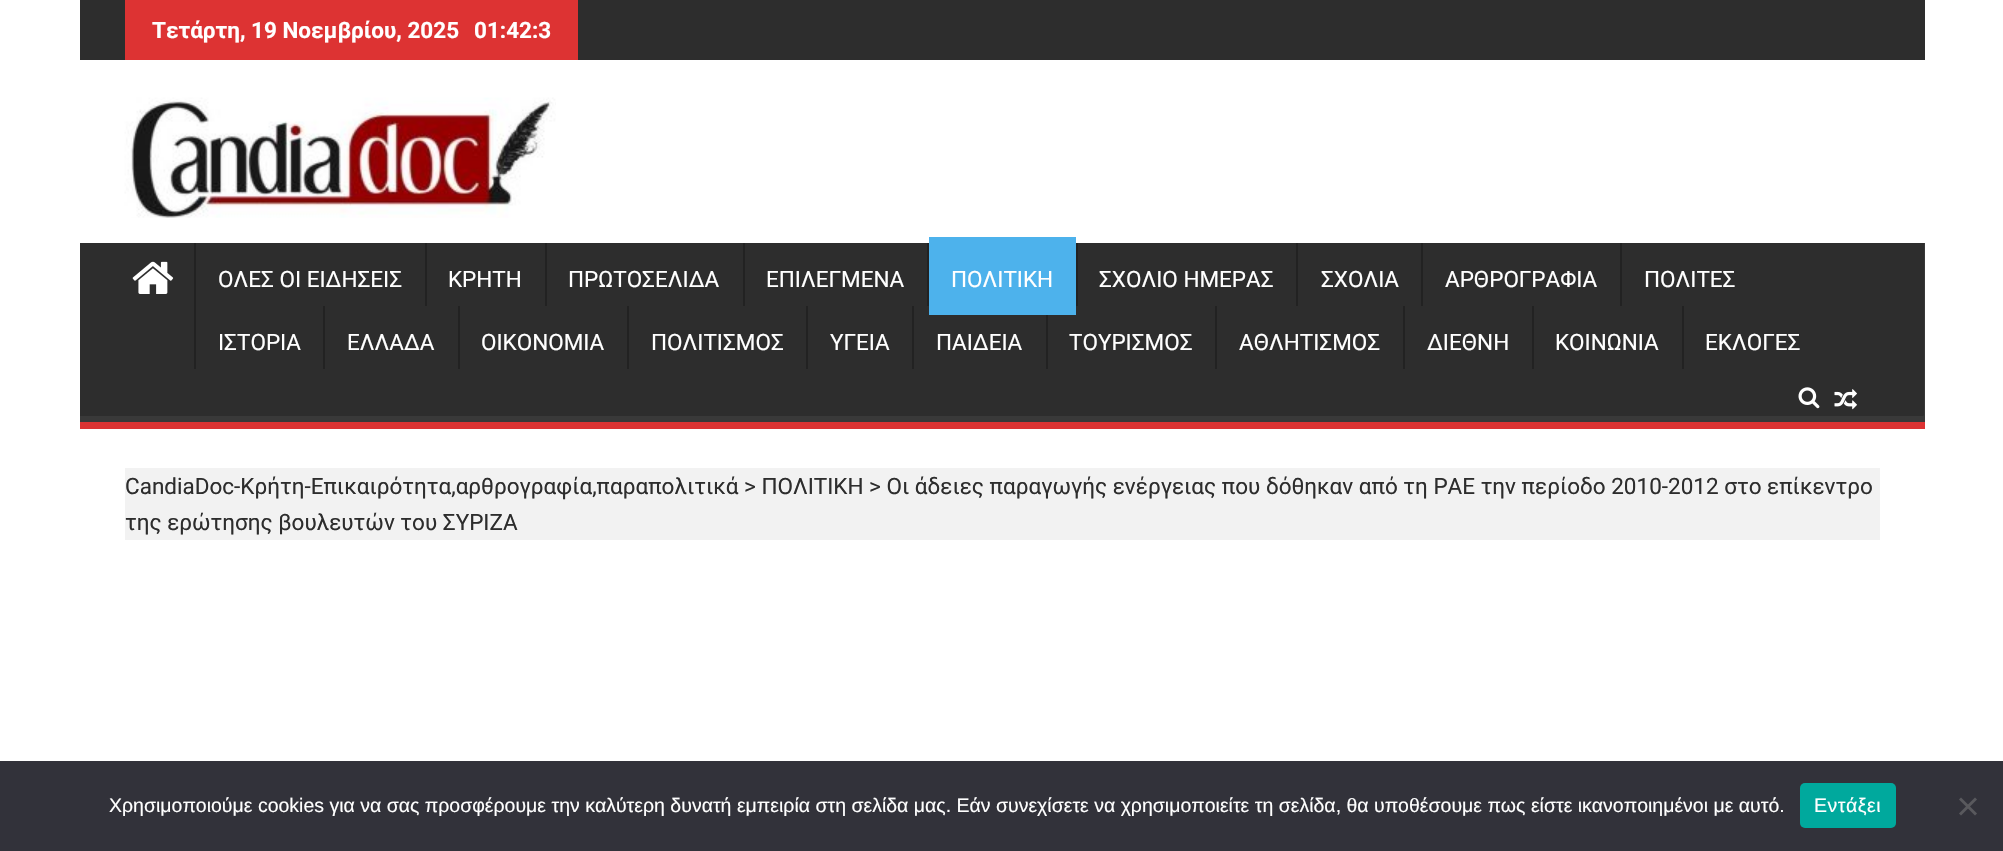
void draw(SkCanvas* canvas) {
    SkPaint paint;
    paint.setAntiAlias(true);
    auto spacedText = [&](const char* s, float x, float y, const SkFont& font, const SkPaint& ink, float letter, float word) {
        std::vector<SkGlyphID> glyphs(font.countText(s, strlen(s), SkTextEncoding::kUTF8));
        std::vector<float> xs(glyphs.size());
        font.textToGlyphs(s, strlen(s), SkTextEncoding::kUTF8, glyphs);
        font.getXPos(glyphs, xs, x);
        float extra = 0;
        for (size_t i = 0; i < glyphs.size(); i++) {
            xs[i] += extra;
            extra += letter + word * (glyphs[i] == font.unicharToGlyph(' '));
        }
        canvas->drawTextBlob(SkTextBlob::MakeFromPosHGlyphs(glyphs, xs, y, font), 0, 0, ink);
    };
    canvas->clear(0xFFFFFFFF);
    paint.setColor(0xFF2D2D2D);
    canvas->drawRect(SkRect::MakeXYWH(80, 0, 1845, 60), paint);
    paint.setColor(0xFFDD3333);
    canvas->drawRect(SkRect::MakeXYWH(125, 0, 453, 60), paint);
    SkFont font1(fontMgr->matchFamilyStyle("Roboto", SkFontStyle::Bold()), 22.5f);
    font1.setSubpixel(true);
    paint.setColor(0xFFFFFFFF);
    canvas->drawString("Τετάρτη, 19 Νοεμβρίου, 2025", 152, 38, font1, paint);
    canvas->drawString("01:42:3", 474, 38, font1, paint);
    canvas->drawImageRect(SkImages::DeferredFromEncodedData(SkData::MakeFromFileName("img1.png")), SkRect::MakeXYWH(124, 97, 432, 121), SkSamplingOptions());
    paint.setColor(0xFF2D2D2D);
    canvas->drawRect(SkRect::MakeXYWH(80, 243, 1844, 173), paint);
    canvas->save();
    canvas->clipRect(SkRect::MakeXYWH(80, 243, 1845, 179));
    paint.setColor(0xFF393939);
    canvas->drawPath(SkPathBuilder(SkPathFillType::kEvenOdd).moveTo(-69, 94).lineTo(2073, 94).lineTo(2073, 570).lineTo(-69, 570).close().moveTo(78, 234).lineTo(1923, 234).cubicTo(1924, 234, 1924, 235, 1924, 236).lineTo(1924, 414).cubicTo(1924, 415, 1924, 416, 1923, 416).lineTo(78, 416).cubicTo(77, 416, 76, 415, 76, 414).lineTo(76, 236).cubicTo(76, 235, 77, 234, 78, 234).close().detach(), paint);
    canvas->restore();
    paint.setColor(0xFFDD3333);
    canvas->drawRect(SkRect::MakeXYWH(80, 422, 1845, 7), paint);
    canvas->drawImageRect(SkImages::DeferredFromEncodedData(SkData::MakeFromFileName("img2.png")), SkRect::MakeXYWH(132, 261, 42, 33), SkSamplingOptions());
    paint.setColor(0xFF222222);
    canvas->drawRect(SkRect::MakeXYWH(194, 243, 2, 126), paint);
    SkFont font2(fontMgr->matchFamilyStyle("Roboto", SkFontStyle::Normal()), 22.5f);
    font2.setSubpixel(true);
    paint.setColor(0xFFFFFFFF);
    canvas->drawString("ΟΛΕΣ ΟΙ ΕΙΔΗΣΕΙΣ", 218, 287, font2, paint);
    paint.setColor(0xFF222222);
    canvas->drawRect(SkRect::MakeXYWH(425, 243, 2, 63), paint);
    paint.setColor(0xFFFFFFFF);
    canvas->drawString("ΚΡΗΤΗ", 448, 287, font2, paint);
    paint.setColor(0xFF222222);
    canvas->drawRect(SkRect::MakeXYWH(545, 243, 2, 63), paint);
    paint.setColor(0xFFFFFFFF);
    canvas->drawString("ΠΡΩΤΟΣΕΛΙΔΑ", 568, 287, font2, paint);
    paint.setColor(0xFF222222);
    canvas->drawRect(SkRect::MakeXYWH(743, 243, 2, 63), paint);
    paint.setColor(0xFFFFFFFF);
    canvas->drawString("ΕΠΙΛΕΓΜΕΝΑ", 766, 287, font2, paint);
    paint.setColor(0xFF222222);
    canvas->drawRect(SkRect::MakeXYWH(927, 243, 2, 63), paint);
    paint.setColor(0xFF4DB2EC);
    canvas->drawRect(SkRect::MakeXYWH(929, 237, 147, 78), paint);
    paint.setColor(0xFFFFFFFF);
    canvas->drawString("ΠΟΛΙΤΙΚΗ", 951, 287, font2, paint);
    paint.setColor(0xFF222222);
    canvas->drawRect(SkRect::MakeXYWH(1076, 243, 2, 63), paint);
    paint.setColor(0xFFFFFFFF);
    canvas->drawString("ΣΧΟΛΙΟ ΗΜΕΡΑΣ", 1099, 287, font2, paint);
    paint.setColor(0xFF222222);
    canvas->drawRect(SkRect::MakeXYWH(1296, 243, 2, 63), paint);
    paint.setColor(0xFFFFFFFF);
    canvas->drawString("ΣΧΟΛΙΑ", 1321, 287, font2, paint);
    paint.setColor(0xFF222222);
    canvas->drawRect(SkRect::MakeXYWH(1421, 243, 2, 63), paint);
    paint.setColor(0xFFFFFFFF);
    canvas->drawString("ΑΡΘΡΟΓΡΑΦΙΑ", 1445, 287, font2, paint);
    paint.setColor(0xFF222222);
    canvas->drawRect(SkRect::MakeXYWH(1620, 243, 2, 63), paint);
    paint.setColor(0xFFFFFFFF);
    canvas->drawString("ΠΟΛΙΤΕΣ", 1644, 287, font2, paint);
    canvas->drawString("ΙΣΤΟΡΙΑ", 218, 350, font2, paint);
    paint.setColor(0xFF222222);
    canvas->drawRect(SkRect::MakeXYWH(323, 306, 2, 63), paint);
    paint.setColor(0xFFFFFFFF);
    canvas->drawString("ΕΛΛΑΔΑ", 347, 350, font2, paint);
    paint.setColor(0xFF222222);
    canvas->drawRect(SkRect::MakeXYWH(458, 306, 2, 63), paint);
    paint.setColor(0xFFFFFFFF);
    canvas->drawString("ΟΙΚΟΝΟΜΙΑ", 481, 350, font2, paint);
    paint.setColor(0xFF222222);
    canvas->drawRect(SkRect::MakeXYWH(627, 306, 2, 63), paint);
    paint.setColor(0xFFFFFFFF);
    canvas->drawString("ΠΟΛΙΤΙΣΜΟΣ", 651, 350, font2, paint);
    paint.setColor(0xFF222222);
    canvas->drawRect(SkRect::MakeXYWH(806, 306, 2, 63), paint);
    paint.setColor(0xFFFFFFFF);
    canvas->drawString("ΥΓΕΙΑ", 830, 350, font2, paint);
    paint.setColor(0xFF222222);
    canvas->drawRect(SkRect::MakeXYWH(912, 306, 2, 63), paint);
    paint.setColor(0xFFFFFFFF);
    canvas->drawString("ΠΑΙΔΕΙΑ", 936, 350, font2, paint);
    paint.setColor(0xFF222222);
    canvas->drawRect(SkRect::MakeXYWH(1046, 315, 2, 54), paint);
    paint.setColor(0xFFFFFFFF);
    canvas->drawString("ΤΟΥΡΙΣΜΟΣ", 1069, 350, font2, paint);
    paint.setColor(0xFF222222);
    canvas->drawRect(SkRect::MakeXYWH(1215, 306, 2, 63), paint);
    paint.setColor(0xFFFFFFFF);
    canvas->drawString("ΑΘΛΗΤΙΣΜΟΣ", 1239, 350, font2, paint);
    paint.setColor(0xFF222222);
    canvas->drawRect(SkRect::MakeXYWH(1403, 306, 2, 63), paint);
    paint.setColor(0xFFFFFFFF);
    canvas->drawString("ΔΙΕΘΝΗ", 1427, 350, font2, paint);
    paint.setColor(0xFF222222);
    canvas->drawRect(SkRect::MakeXYWH(1532, 306, 2, 63), paint);
    paint.setColor(0xFFFFFFFF);
    canvas->drawString("ΚΟΙΝΩΝΙΑ", 1555, 350, font2, paint);
    paint.setColor(0xFF222222);
    canvas->drawRect(SkRect::MakeXYWH(1682, 306, 2, 63), paint);
    paint.setColor(0xFFFFFFFF);
    canvas->drawString("ΕΚΛΟΓΕΣ", 1705, 350, font2, paint);
    canvas->drawImageRect(SkImages::DeferredFromEncodedData(SkData::MakeFromFileName("img3.png")), SkRect::MakeXYWH(1798, 387, 22, 22), SkSamplingOptions());
    canvas->drawImageRect(SkImages::DeferredFromEncodedData(SkData::MakeFromFileName("img4.png")), SkRect::MakeXYWH(1834, 389, 23, 21), SkSamplingOptions());
    paint.setColor(0xFFF2F2F2);
    canvas->drawRect(SkRect::MakeXYWH(125, 468, 1755, 72), paint);
    paint.setColor(0xFF2D2D2D);
    canvas->drawString("CandiaDoc-Κρήτη-Επικαιρότητα,αρθρογραφία,παραπολιτικά > ΠΟΛΙΤΙΚΗ > Οι άδειες παραγωγής ενέργειας που δόθηκαν από τη ΡΑΕ την περίοδο 2010-2012 στο επίκεντρο", 125, 494, font2, paint);
    canvas->drawString("της ερώτησης βουλευτών του ΣΥΡΙΖΑ", 125, 530, font2, paint);
    paint.setColor(0xFF32323A);
    canvas->drawRect(SkRect::MakeXYWH(0, 761, 2003, 90), paint);
    SkFont font3(fontMgr->matchFamilyStyle("Liberation Sans", SkFontStyle::Normal()), 19.5f);
    font3.setSubpixel(true);
    paint.setColor(0xFFFFFFFF);
    canvas->drawString("Χρησιμοποιούμε cookies για να σας προσφέρουμε την καλύτερη δυνατή εμπειρία στη σελίδα μας. Εάν συνεχίσετε να χρησιμοποιείτε τη σελίδα, θα υποθέσουμε πως είστε ικανοποιημένοι με αυτό.", 109, 812, font3, paint);
    paint.setColor(0xFF00A99D);
    canvas->drawRoundRect(SkRect::MakeXYWH(1800, 783, 96, 45), 5, 5, paint);
    paint.setColor(0xFFFFFFFF);
    spacedText("Εντάξει", 1814, 812, font3, paint, 0.5f, 0);
    paint.setColor(0xFF59595D);
    canvas->drawPath(SkPathBuilder().moveTo(1975, 797.5f).lineTo(1977, 799.5f).lineTo(1961, 815.5f).lineTo(1959, 813.5f).close().detach(), paint);
    canvas->drawPath(SkPathBuilder().moveTo(1959, 799.5f).lineTo(1961, 797.5f).lineTo(1977, 813.5f).lineTo(1975, 815.5f).close().detach(), paint);
}
